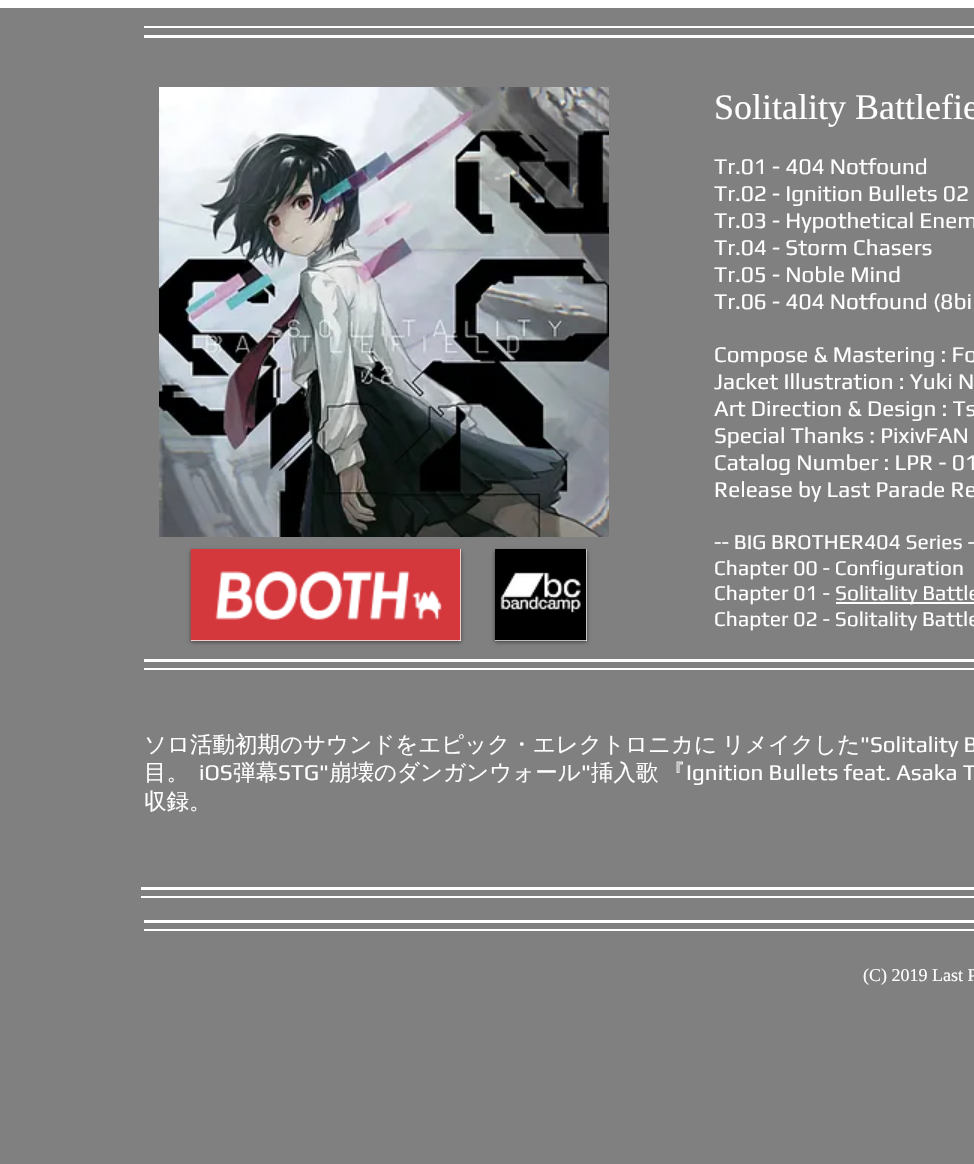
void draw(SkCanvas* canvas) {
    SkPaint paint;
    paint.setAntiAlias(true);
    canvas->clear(0xFFFFFFFF);
    paint.setColor(0xFF808080);
    canvas->drawRect(SkRect::MakeXYWH(0, 8, 974, 1156), paint);
    paint.setColor(0xFFFFFFFF);
    canvas->drawRect(SkRect::MakeXYWH(144, 26, 830, 2), paint);
    canvas->drawRect(SkRect::MakeXYWH(144, 35, 830, 3), paint);
    canvas->drawImageRect(SkImages::DeferredFromEncodedData(SkData::MakeFromFileName("img1.png")), SkRect::MakeXYWH(159, 87, 450, 450), SkSamplingOptions());
    SkFont font1(fontMgr->matchFamilyStyle("Liberation Serif", SkFontStyle::Normal()), 36);
    font1.setSubpixel(true);
    canvas->drawString("Solitality Battlefie", 714, 119, font1, paint);
    SkFont font2(fontMgr->matchFamilyStyle("Play", SkFontStyle::Normal()), 22.5f);
    font2.setSubpixel(true);
    canvas->drawString("Tr.01 - 404 Notfound", 714, 174, font2, paint);
    canvas->drawString("Tr.02 - Ignition Bullets 02", 714, 201, font2, paint);
    canvas->drawString("Tr.03 - Hypothetical Enem", 714, 228, font2, paint);
    canvas->drawString("Tr.04 - Storm Chasers", 714, 255, font2, paint);
    canvas->drawString("Tr.05 - Noble Mind", 714, 282, font2, paint);
    canvas->drawString("Tr.06 - 404 Notfound (8bi", 714, 309, font2, paint);
    canvas->drawString("Compose & Mastering : Fo", 714, 362, font2, paint);
    canvas->drawString("Jacket Illustration : Yuki N", 714, 389, font2, paint);
    canvas->drawString("Art Direction & Design : Ts", 714, 416, font2, paint);
    canvas->drawString("Special Thanks : PixivFAN", 714, 443, font2, paint);
    canvas->drawString("Catalog Number : LPR - 01", 714, 470, font2, paint);
    canvas->drawString("Release by Last Parade Re", 714, 497, font2, paint);
    SkFont font3(fontMgr->matchFamilyStyle("Play", SkFontStyle::Normal()), 21);
    font3.setSubpixel(true);
    canvas->drawString("-- BIG BROTHER404 Series -", 714, 549, font3, paint);
    canvas->drawString("Chapter 00 - Configuration", 714, 575, font3, paint);
    canvas->drawString("Chapter 01 -", 714, 600, font3, paint);
    canvas->drawRect(SkRect::MakeXYWH(836, 602, 138, 2), paint);
    canvas->drawString("Solitality Battle", 835, 600, font3, paint);
    canvas->drawString("Chapter 02 - Solitality Battle", 714, 626, font3, paint);
    paint.setColor(0x80000000);
    paint.setMaskFilter(SkMaskFilter::MakeBlur(kNormal_SkBlurStyle, 2));
    canvas->drawRect(SkRect::MakeXYWH(191, 551, 270, 91), paint);
    paint.setMaskFilter(nullptr);
    paint.setColor(0xFFFFFFFF);
    canvas->drawRect(SkRect::MakeXYWH(191, 549, 270, 92), paint);
    canvas->drawImageRect(SkImages::DeferredFromEncodedData(SkData::MakeFromFileName("img2.png")), SkRect::MakeXYWH(190, 549, 271, 92), SkSamplingOptions());
    paint.setColor(0x80000000);
    paint.setMaskFilter(SkMaskFilter::MakeBlur(kNormal_SkBlurStyle, 2));
    canvas->drawRect(SkRect::MakeXYWH(495, 551, 92, 91), paint);
    paint.setMaskFilter(nullptr);
    paint.setColor(0xFFFFFFFF);
    canvas->drawRect(SkRect::MakeXYWH(495, 549, 92, 92), paint);
    canvas->drawImageRect(SkImages::DeferredFromEncodedData(SkData::MakeFromFileName("img3.png")), SkRect::MakeXYWH(495, 549, 92, 92), SkSamplingOptions());
    canvas->drawRect(SkRect::MakeXYWH(144, 659, 830, 3), paint);
    canvas->drawRect(SkRect::MakeXYWH(144, 668, 830, 2), paint);
    SkFont font4(fontMgr->matchFamilyStyle("WenQuanYi Zen Hei", SkFontStyle(500, SkFontStyle::kNormal_Width, SkFontStyle::kUpright_Slant)), 22.5f);
    font4.setSubpixel(true);
    canvas->drawString("ソロ活動初期のサウンドをエピック・エレクトロニカに", 144, 752, font4, paint);
    canvas->drawString("リメイクした", 722, 752, font4, paint);
    canvas->drawString("\"Solitality B", 860, 752, font2, paint);
    canvas->drawString("目。", 144, 780, font4, paint);
    canvas->drawString("iOS", 199, 780, font2, paint);
    canvas->drawString("弾幕", 233, 780, font4, paint);
    canvas->drawString("STG\"", 278, 780, font2, paint);
    canvas->drawString("崩壊のダンガンウォール", 329, 780, font4, paint);
    canvas->drawString("\"", 581, 780, font2, paint);
    canvas->drawString("挿入歌", 591, 780, font4, paint);
    canvas->drawString("『", 663, 780, font4, paint);
    canvas->drawString("Ignition Bullets feat. Asaka T", 686, 780, font2, paint);
    canvas->drawString("収録。", 144, 809, font4, paint);
    canvas->drawRect(SkRect::MakeXYWH(141, 887, 833, 3), paint);
    canvas->drawRect(SkRect::MakeXYWH(141, 896, 833, 2), paint);
    canvas->drawRect(SkRect::MakeXYWH(144, 920, 830, 3), paint);
    canvas->drawRect(SkRect::MakeXYWH(144, 929, 830, 2), paint);
    SkFont font5(fontMgr->matchFamilyStyle("Liberation Serif", SkFontStyle::Normal()), 18);
    font5.setSubpixel(true);
    canvas->drawString("(C) 2019 Last P", 863, 981, font5, paint);
}
